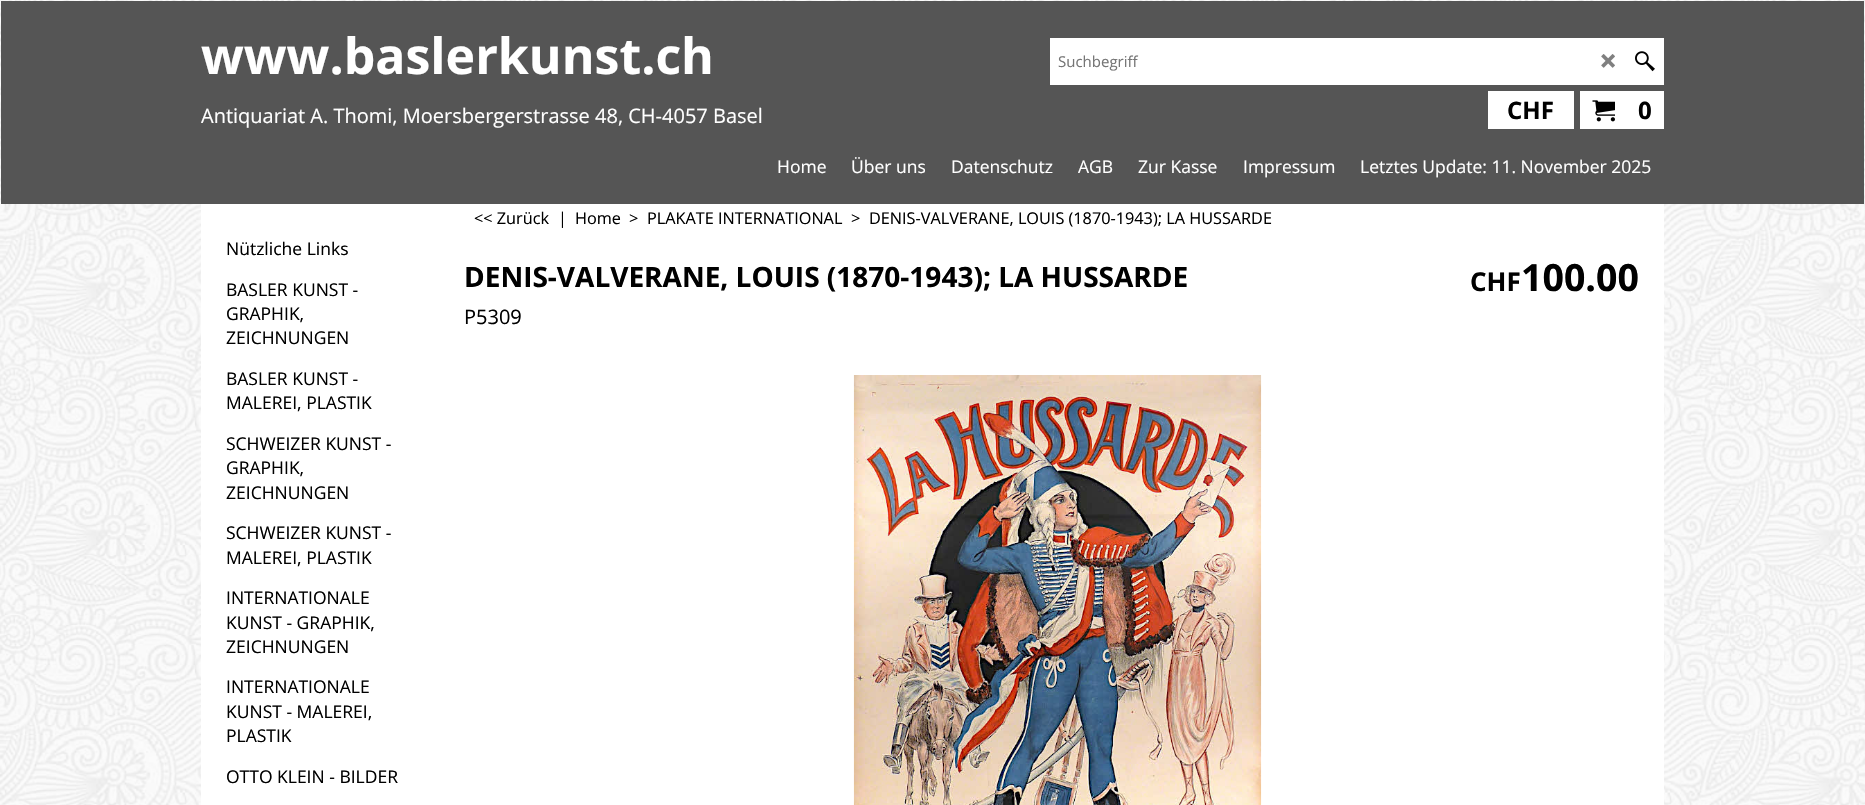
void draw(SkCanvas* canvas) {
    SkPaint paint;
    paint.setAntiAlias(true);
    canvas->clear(0xFFFFFFFF);
    canvas->drawImageRect(SkImages::DeferredFromEncodedData(SkData::MakeFromFileName("img1.png")), SkRect::MakeXYWH(0, 0, 1865, 805), SkSamplingOptions());
    paint.setColor(0xFF555555);
    canvas->drawRect(SkRect::MakeXYWH(1, 1, 1863, 203), paint);
    SkFont font1(fontMgr->matchFamilyStyle("Open Sans", SkFontStyle::Bold()), 50);
    font1.setSubpixel(true);
    paint.setColor(0xFFFFFFFF);
    canvas->drawString("www.baslerkunst.ch", 201, 74, font1, paint);
    SkFont font2(fontMgr->matchFamilyStyle("Open Sans", SkFontStyle::Normal()), 20);
    font2.setSubpixel(true);
    canvas->drawString("Antiquariat A. Thomi, Moersbergerstrasse 48, CH-4057 Basel", 201, 123, font2, paint);
    paint.setStyle(SkPaint::kStroke_Style);
    paint.setStrokeWidth(1);
    canvas->drawRect(SkRect::MakeXYWH(1050.5f, 38.5f, 613, 46), paint);
    paint.setStyle(SkPaint::kFill_Style);
    canvas->drawRect(SkRect::MakeXYWH(1051, 39, 612, 45), paint);
    SkFont font3(fontMgr->matchFamilyStyle("Open Sans", SkFontStyle::Normal()), 15);
    font3.setSubpixel(true);
    paint.setColor(0xFF757575);
    canvas->drawString("Suchbegriff", 1058, 67, font3, paint);
    canvas->drawImageRect(SkImages::DeferredFromEncodedData(SkData::MakeFromFileName("img2.png")), SkRect::MakeXYWH(1601, 54, 14, 14), SkSamplingOptions());
    canvas->drawImageRect(SkImages::DeferredFromEncodedData(SkData::MakeFromFileName("img3.png")), SkRect::MakeXYWH(1635, 51, 20, 21), SkSamplingOptions());
    paint.setColor(0xFFFFFFFF);
    canvas->drawRect(SkRect::MakeXYWH(1488, 91, 86, 38), paint);
    SkFont font4(fontMgr->matchFamilyStyle("Open Sans", SkFontStyle::Bold()), 24);
    font4.setSubpixel(true);
    paint.setColor(0xFF000000);
    canvas->drawString("CHF", 1507, 119, font4, paint);
    paint.setColor(0xFFFFFFFF);
    canvas->drawRect(SkRect::MakeXYWH(1580, 91, 84, 38), paint);
    canvas->drawImageRect(SkImages::DeferredFromEncodedData(SkData::MakeFromFileName("img4.png")), SkRect::MakeXYWH(1592, 100, 23, 22), SkSamplingOptions());
    paint.setColor(0xFF000000);
    canvas->drawString("0", 1638, 119, font4, paint);
    SkFont font5(fontMgr->matchFamilyStyle("Open Sans", SkFontStyle::Normal()), 17.5f);
    font5.setSubpixel(true);
    paint.setColor(0xFFFFFFFF);
    canvas->drawString("Home", 777, 173, font5, paint);
    canvas->drawString("Über uns", 851, 173, font5, paint);
    canvas->drawString("Datenschutz", 951, 173, font5, paint);
    canvas->drawString("AGB", 1078, 173, font5, paint);
    canvas->drawString("Zur Kasse", 1138, 173, font5, paint);
    canvas->drawString("Impressum", 1243, 173, font5, paint);
    canvas->drawString("Letztes Update: 11. November 2025", 1360, 173, font5, paint);
    canvas->drawRect(SkRect::MakeXYWH(201, 204, 1463, 601), paint);
    paint.setColor(0xFF000000);
    canvas->drawString("Nützliche Links", 226, 255, font5, paint);
    canvas->drawString("BASLER KUNST -", 226, 296, font5, paint);
    canvas->drawString("GRAPHIK,", 226, 320, font5, paint);
    canvas->drawString("ZEICHNUNGEN", 226, 344, font5, paint);
    canvas->drawString("BASLER KUNST -", 226, 385, font5, paint);
    canvas->drawString("MALEREI, PLASTIK", 226, 409, font5, paint);
    canvas->drawString("SCHWEIZER KUNST -", 226, 450, font5, paint);
    canvas->drawString("GRAPHIK,", 226, 474, font5, paint);
    canvas->drawString("ZEICHNUNGEN", 226, 499, font5, paint);
    canvas->drawString("SCHWEIZER KUNST -", 226, 539, font5, paint);
    canvas->drawString("MALEREI, PLASTIK", 226, 564, font5, paint);
    canvas->drawString("INTERNATIONALE", 226, 604, font5, paint);
    canvas->drawString("KUNST - GRAPHIK,", 226, 629, font5, paint);
    canvas->drawString("ZEICHNUNGEN", 226, 653, font5, paint);
    canvas->drawString("INTERNATIONALE", 226, 693, font5, paint);
    canvas->drawString("KUNST - MALEREI,", 226, 718, font5, paint);
    canvas->drawString("PLASTIK", 226, 742, font5, paint);
    canvas->drawString("OTTO KLEIN - BILDER", 226, 783, font5, paint);
    SkFont font6(fontMgr->matchFamilyStyle("Open Sans", SkFontStyle::Normal()), 16.25f);
    font6.setSubpixel(true);
    canvas->drawString("<< Zurück", 474, 224, font6, paint);
    canvas->drawString("|", 558, 224, font6, paint);
    canvas->drawString("Home", 575, 224, font6, paint);
    canvas->drawString(">", 629, 224, font6, paint);
    canvas->drawString("PLAKATE INTERNATIONAL", 647, 224, font6, paint);
    canvas->drawString(">", 851, 224, font6, paint);
    canvas->drawString("DENIS-VALVERANE, LOUIS (1870-1943); LA HUSSARDE", 869, 224, font6, paint);
    SkFont font7(fontMgr->matchFamilyStyle("Open Sans", SkFontStyle::Bold()), 28);
    font7.setSubpixel(true);
    canvas->drawString("DENIS-VALVERANE, LOUIS (1870-1943); LA HUSSARDE", 464, 287, font7, paint);
    canvas->drawString("P5309", 464, 324, font2, paint);
    SkFont font8(fontMgr->matchFamilyStyle("Open Sans", SkFontStyle::Bold()), 26);
    font8.setSubpixel(true);
    canvas->drawString("CHF", 1470, 291, font8, paint);
    SkFont font9(fontMgr->matchFamilyStyle("Open Sans", SkFontStyle::Bold()), 37.5f);
    font9.setSubpixel(true);
    canvas->drawString("100.00", 1521, 291, font9, paint);
    canvas->drawImageRect(SkImages::DeferredFromEncodedData(SkData::MakeFromFileName("img5.png")), SkRect::MakeXYWH(853, 375, 409, 430), SkSamplingOptions());
}
